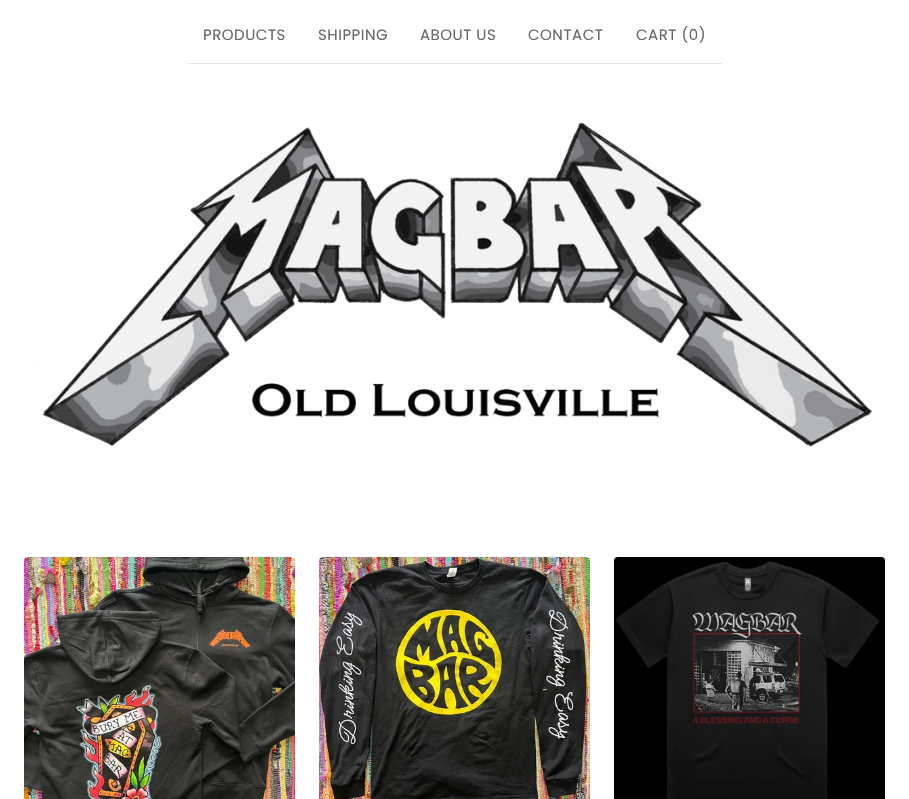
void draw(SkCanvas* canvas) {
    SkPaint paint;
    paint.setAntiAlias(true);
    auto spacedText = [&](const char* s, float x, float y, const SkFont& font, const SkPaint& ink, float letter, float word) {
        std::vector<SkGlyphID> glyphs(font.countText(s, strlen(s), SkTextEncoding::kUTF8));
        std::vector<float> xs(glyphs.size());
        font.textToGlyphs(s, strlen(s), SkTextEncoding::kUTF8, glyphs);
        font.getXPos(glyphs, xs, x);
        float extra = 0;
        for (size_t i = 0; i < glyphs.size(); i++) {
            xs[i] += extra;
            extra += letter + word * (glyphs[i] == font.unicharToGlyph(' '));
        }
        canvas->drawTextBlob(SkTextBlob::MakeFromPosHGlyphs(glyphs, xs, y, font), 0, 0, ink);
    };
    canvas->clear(0xFFFFFFFF);
    paint.setColor(0xFFE5E5E5);
    canvas->drawRect(SkRect::MakeXYWH(187, 63, 535, 1), paint);
    SkFont font1(fontMgr->matchFamilyStyle("Poppins", SkFontStyle::Normal()), 15);
    font1.setSubpixel(true);
    paint.setColor(0xFF666666);
    spacedText("PRODUCTS", 203, 40, font1, paint, 0.5f, 0);
    spacedText("SHIPPING", 318, 40, font1, paint, 0.5f, 0);
    spacedText("ABOUT US", 420, 40, font1, paint, 0.5f, 0);
    spacedText("CONTACT", 528, 40, font1, paint, 0.5f, 0);
    spacedText("CART (0)", 636, 40, font1, paint, 0.5f, 0);
    canvas->drawImageRect(SkImages::DeferredFromEncodedData(SkData::MakeFromFileName("img1.png")), SkRect::MakeXYWH(36, 122, 837, 325), SkSamplingOptions());
    canvas->drawImageRect(SkImages::DeferredFromEncodedData(SkData::MakeFromFileName("img2.png")), SkRect::MakeXYWH(24, 557, 271, 242), SkSamplingOptions());
    canvas->drawImageRect(SkImages::DeferredFromEncodedData(SkData::MakeFromFileName("img3.png")), SkRect::MakeXYWH(319, 557, 271, 242), SkSamplingOptions());
    canvas->drawImageRect(SkImages::DeferredFromEncodedData(SkData::MakeFromFileName("img4.png")), SkRect::MakeXYWH(614, 557, 271, 242), SkSamplingOptions());
}
